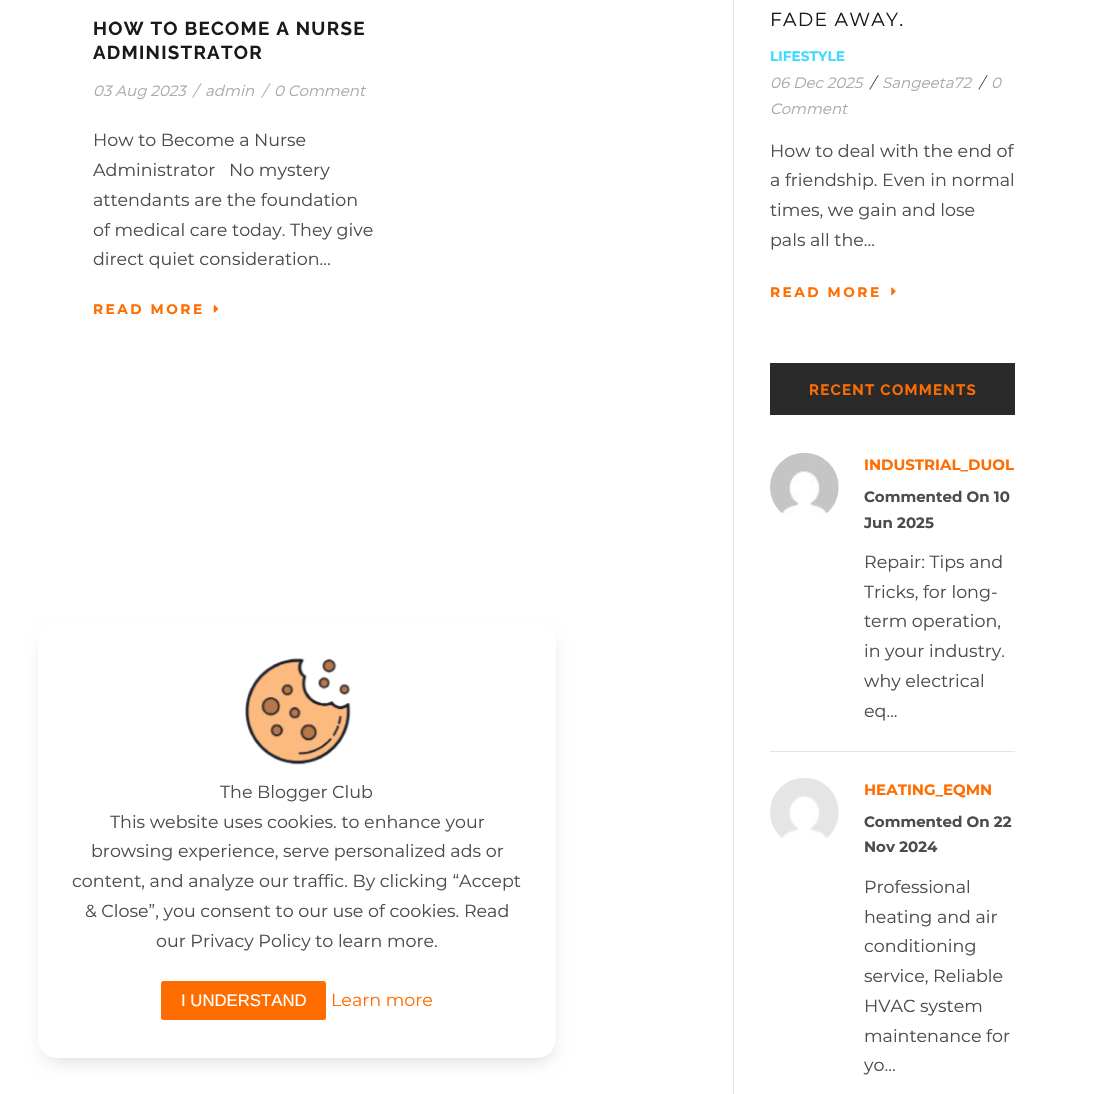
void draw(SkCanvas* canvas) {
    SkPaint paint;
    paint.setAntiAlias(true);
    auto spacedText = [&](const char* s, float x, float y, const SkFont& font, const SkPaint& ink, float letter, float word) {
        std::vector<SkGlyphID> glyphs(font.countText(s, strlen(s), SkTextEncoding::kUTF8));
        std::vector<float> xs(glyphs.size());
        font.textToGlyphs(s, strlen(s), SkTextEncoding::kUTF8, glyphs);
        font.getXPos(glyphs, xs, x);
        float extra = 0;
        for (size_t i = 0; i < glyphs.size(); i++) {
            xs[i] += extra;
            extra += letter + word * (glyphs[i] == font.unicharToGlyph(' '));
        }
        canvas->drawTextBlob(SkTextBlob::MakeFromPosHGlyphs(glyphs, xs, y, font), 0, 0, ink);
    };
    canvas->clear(0xFFFFFFFF);
    SkFont font1(fontMgr->matchFamilyStyle("Raleway", SkFontStyle::Bold()), 18.75f);
    font1.setSubpixel(true);
    paint.setColor(0xFF1A1A1A);
    spacedText("HOW TO BECOME A NURSE", 93, 35, font1, paint, 1.25f, 0);
    spacedText("ADMINISTRATOR", 93, 59, font1, paint, 1.25f, 0);
    SkFont font2(fontMgr->matchFamilyStyle("Montserrat", SkFontStyle::Italic()), 15);
    font2.setSubpixel(true);
    paint.setColor(0xFFAAAAAA);
    canvas->drawString("03 Aug 2023", 93, 96, font2, paint);
    canvas->drawString("/", 193, 96, font2, paint);
    canvas->drawString("admin", 205, 96, font2, paint);
    canvas->drawString("/", 262, 96, font2, paint);
    canvas->drawString("0 Comment", 274, 96, font2, paint);
    SkFont font3(fontMgr->matchFamilyStyle("Montserrat", SkFontStyle::Normal()), 17.5f);
    font3.setSubpixel(true);
    paint.setColor(0xFF4C4C4C);
    canvas->drawString("How to Become a Nurse", 93, 146, font3, paint);
    canvas->drawString("Administrator   No mystery", 93, 176, font3, paint);
    canvas->drawString("attendants are the foundation", 93, 206, font3, paint);
    canvas->drawString("of medical care today. They give", 93, 236, font3, paint);
    canvas->drawString("direct quiet consideration...", 93, 265, font3, paint);
    SkFont font4(fontMgr->matchFamilyStyle("Montserrat", SkFontStyle::Bold()), 13.75f);
    font4.setSubpixel(true);
    paint.setColor(0xFFFF6D00);
    spacedText("READ MORE", 93, 314, font4, paint, 2.5f, 0);
    canvas->drawImageRect(SkImages::DeferredFromEncodedData(SkData::MakeFromFileName("img1.png")), SkRect::MakeXYWH(213, 305, 6, 8), SkSamplingOptions());
    paint.setColor(0xFFE5E5E5);
    canvas->drawRect(SkRect::MakeXYWH(733, 0, 1, 1094), paint);
    SkFont font5(fontMgr->matchFamilyStyle("Montserrat", SkFontStyle::Normal()), 18.75f);
    font5.setSubpixel(true);
    paint.setColor(0xFF1A1A1A);
    spacedText("FADE AWAY.", 770, 26, font5, paint, 1.25f, 0);
    paint.setColor(0xFF3DDBFF);
    canvas->drawString("LIFESTYLE", 770, 61, font4, paint);
    paint.setColor(0xFFAAAAAA);
    canvas->drawString("06 Dec 2025", 770, 88, font2, paint);
    paint.setColor(0xFF4C4C4C);
    canvas->drawString("/", 870, 88, font2, paint);
    paint.setColor(0xFFAAAAAA);
    canvas->drawString("Sangeeta72", 882, 88, font2, paint);
    paint.setColor(0xFF4C4C4C);
    canvas->drawString("/", 979, 88, font2, paint);
    paint.setColor(0xFFAAAAAA);
    canvas->drawString("0", 991, 88, font2, paint);
    canvas->drawString("Comment", 770, 114, font2, paint);
    paint.setColor(0xFF4C4C4C);
    canvas->drawString("How to deal with the end of", 770, 157, font3, paint);
    canvas->drawString("a friendship. Even in normal", 770, 186, font3, paint);
    canvas->drawString("times, we gain and lose", 770, 216, font3, paint);
    canvas->drawString("pals all the...", 770, 246, font3, paint);
    paint.setColor(0xFFFF6D00);
    spacedText("READ MORE", 770, 297, font4, paint, 2.5f, 0);
    canvas->drawImageRect(SkImages::DeferredFromEncodedData(SkData::MakeFromFileName("img2.png")), SkRect::MakeXYWH(891, 287, 5, 9), SkSamplingOptions());
    paint.setColor(0xFF2A2A2A);
    canvas->drawRect(SkRect::MakeXYWH(770, 363, 245, 52), paint);
    SkFont font6(fontMgr->matchFamilyStyle("Raleway", SkFontStyle::Bold()), 15);
    font6.setSubpixel(true);
    paint.setColor(0xFFFF6D00);
    spacedText("RECENT COMMENTS", 809, 395, font6, paint, 1.25f, 0);
    paint.setColor(0xFFE5E5E5);
    canvas->drawRect(SkRect::MakeXYWH(770, 751, 245, 1), paint);
    canvas->drawImageRect(SkImages::DeferredFromEncodedData(SkData::MakeFromFileName("img3.png")), SkRect::MakeXYWH(770, 453, 69, 61), SkSamplingOptions());
    SkFont font7(fontMgr->matchFamilyStyle("Montserrat", SkFontStyle::Bold()), 15);
    font7.setSubpixel(true);
    paint.setColor(0xFFFF6D00);
    canvas->drawString("INDUSTRIAL_DUOL", 864, 470, font7, paint);
    paint.setColor(0xFF4C4C4C);
    canvas->drawString("Commented On 10", 864, 502, font7, paint);
    canvas->drawString("Jun 2025", 864, 528, font7, paint);
    canvas->drawString("Repair: Tips and", 864, 568, font3, paint);
    canvas->drawString("Tricks, for long-", 864, 598, font3, paint);
    canvas->drawString("term operation,", 864, 627, font3, paint);
    canvas->drawString("in your industry.", 864, 657, font3, paint);
    canvas->drawString("why electrical", 864, 687, font3, paint);
    canvas->drawString("eq...", 864, 717, font3, paint);
    canvas->drawImageRect(SkImages::DeferredFromEncodedData(SkData::MakeFromFileName("img4.png")), SkRect::MakeXYWH(770, 778, 69, 61), SkSamplingOptions());
    paint.setColor(0xFFFF6D00);
    canvas->drawString("HEATING_EQMN", 864, 795, font7, paint);
    paint.setColor(0xFF4C4C4C);
    canvas->drawString("Commented On 22", 864, 827, font7, paint);
    canvas->drawString("Nov 2024", 864, 852, font7, paint);
    canvas->drawString("Professional", 864, 893, font3, paint);
    canvas->drawString("heating and air", 864, 923, font3, paint);
    canvas->drawString("conditioning", 864, 952, font3, paint);
    canvas->drawString("service, Reliable", 864, 982, font3, paint);
    canvas->drawString("HVAC system", 864, 1012, font3, paint);
    canvas->drawString("maintenance for", 864, 1042, font3, paint);
    canvas->drawString("yo...", 864, 1071, font3, paint);
    paint.setColor(0x26000000);
    paint.setMaskFilter(SkMaskFilter::MakeBlur(kNormal_SkBlurStyle, 9));
    canvas->drawRoundRect(SkRect::MakeXYWH(45, 636, 506, 424), 13, 13, paint);
    paint.setMaskFilter(nullptr);
    paint.setColor(0xFFFFFFFF);
    canvas->drawRoundRect(SkRect::MakeXYWH(38, 621, 518, 437), 19, 19, paint);
    canvas->drawImageRect(SkImages::DeferredFromEncodedData(SkData::MakeFromFileName("img5.png")), SkRect::MakeXYWH(245, 658, 106, 107), SkSamplingOptions());
    paint.setColor(0xFF4C4C4C);
    canvas->drawString("The Blogger Club", 220, 798, font3, paint);
    canvas->drawString("This website uses cookies. to enhance your", 110, 828, font3, paint);
    canvas->drawString("browsing experience, serve personalized ads or", 91, 857, font3, paint);
    canvas->drawString("content, and analyze our traffic. By clicking “Accept", 72, 887, font3, paint);
    canvas->drawString("& Close”, you consent to our use of cookies. Read", 85, 917, font3, paint);
    canvas->drawString("our Privacy Policy to learn more.", 156, 947, font3, paint);
    paint.setColor(0xFFFF6D00);
    canvas->drawRoundRect(SkRect::MakeXYWH(161, 981, 165, 39), 2.5f, 2.5f, paint);
    SkFont font8(fontMgr->matchFamilyStyle("Liberation Sans", SkFontStyle::Normal()), 16.75f);
    font8.setSubpixel(true);
    paint.setColor(0xFFFFFFFF);
    canvas->drawString("I UNDERSTAND", 181, 1006, font8, paint);
    paint.setColor(0xFFFF6D00);
    canvas->drawString("Learn more", 331, 1006, font3, paint);
}
